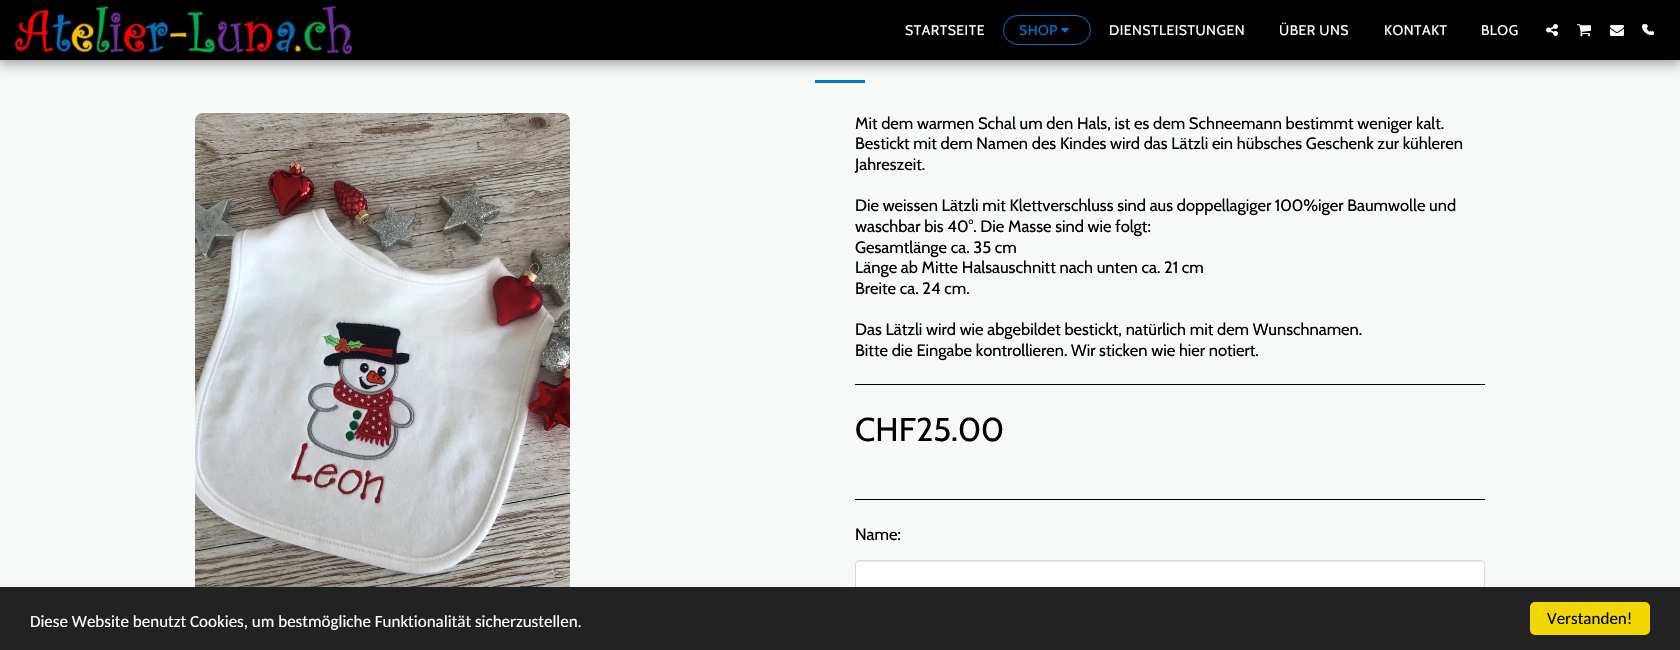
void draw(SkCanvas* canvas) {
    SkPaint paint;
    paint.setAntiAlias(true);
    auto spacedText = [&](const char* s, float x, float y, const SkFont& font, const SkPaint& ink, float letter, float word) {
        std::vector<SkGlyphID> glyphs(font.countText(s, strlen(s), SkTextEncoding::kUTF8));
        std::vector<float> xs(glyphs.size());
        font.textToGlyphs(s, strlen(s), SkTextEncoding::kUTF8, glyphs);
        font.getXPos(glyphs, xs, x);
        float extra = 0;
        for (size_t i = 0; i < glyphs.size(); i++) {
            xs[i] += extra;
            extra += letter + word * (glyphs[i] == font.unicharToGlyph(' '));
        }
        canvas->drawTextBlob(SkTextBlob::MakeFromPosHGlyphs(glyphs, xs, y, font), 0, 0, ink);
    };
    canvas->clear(0xFFF7F9F8);
    paint.setColor(0xFF0476D0);
    canvas->drawRect(SkRect::MakeXYWH(815, 80, 50, 3), paint);
    paint.setColor(0x59000000);
    paint.setMaskFilter(SkMaskFilter::MakeBlur(kNormal_SkBlurStyle, 6));
    canvas->drawRect(SkRect::MakeXYWH(-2, 0, 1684, 64), paint);
    paint.setMaskFilter(nullptr);
    paint.setColor(0xFF000000);
    canvas->drawRect(SkRect::MakeXYWH(0, 0, 1680, 60), paint);
    canvas->drawImageRect(SkImages::DeferredFromEncodedData(SkData::MakeFromFileName("img1.png")), SkRect::MakeXYWH(15, 5, 337, 49), SkSamplingOptions());
    SkFont font1(fontMgr->matchFamilyStyle("Cabin", SkFontStyle::Normal()), 14);
    font1.setSubpixel(true);
    paint.setColor(0xFFFFFFFF);
    spacedText("STARTSEITE", 905, 35, font1, paint, 0.5f, 0);
    paint.setStyle(SkPaint::kStroke_Style);
    paint.setStrokeWidth(1);
    paint.setColor(0xFF0476D0);
    canvas->drawRoundRect(SkRect::MakeXYWH(1003.5f, 15.5f, 87, 29), 14.5f, 14.5f, paint);
    paint.setStyle(SkPaint::kFill_Style);
    spacedText("SHOP", 1019, 35, font1, paint, 0.5f, 0);
    canvas->drawImageRect(SkImages::DeferredFromEncodedData(SkData::MakeFromFileName("img2.png")), SkRect::MakeXYWH(1061, 28, 8, 5), SkSamplingOptions());
    paint.setColor(0xFFFFFFFF);
    spacedText("DIENSTLEISTUNGEN", 1109, 35, font1, paint, 0.5f, 0);
    spacedText("ÜBER UNS", 1279, 35, font1, paint, 0.5f, 0);
    spacedText("KONTAKT", 1384, 35, font1, paint, 0.5f, 0);
    spacedText("BLOG", 1481, 35, font1, paint, 0.5f, 0);
    canvas->drawImageRect(SkImages::DeferredFromEncodedData(SkData::MakeFromFileName("img3.png")), SkRect::MakeXYWH(1546, 24, 12, 12), SkSamplingOptions());
    canvas->drawImageRect(SkImages::DeferredFromEncodedData(SkData::MakeFromFileName("img4.png")), SkRect::MakeXYWH(1577, 24, 14, 13), SkSamplingOptions());
    canvas->drawImageRect(SkImages::DeferredFromEncodedData(SkData::MakeFromFileName("img5.png")), SkRect::MakeXYWH(1610, 25, 14, 11), SkSamplingOptions());
    canvas->drawImageRect(SkImages::DeferredFromEncodedData(SkData::MakeFromFileName("img6.png")), SkRect::MakeXYWH(1644, 24, 10, 11), SkSamplingOptions());
    canvas->drawImageRect(SkImages::DeferredFromEncodedData(SkData::MakeFromFileName("img7.png")), SkRect::MakeXYWH(1642, 24, 10, 11), SkSamplingOptions());
    canvas->drawImageRect(SkImages::DeferredFromEncodedData(SkData::MakeFromFileName("img8.png")), SkRect::MakeXYWH(195, 113, 375, 474), SkSamplingOptions());
    SkFont font2(fontMgr->matchFamilyStyle("Cabin", SkFontStyle::Normal()), 16.5f);
    font2.setSubpixel(true);
    paint.setColor(0xFF000000);
    canvas->drawString("Mit dem warmen Schal um den Hals, ist es dem Schneemann bestimmt weniger kalt.", 855, 129, font2, paint);
    canvas->drawString("Bestickt mit dem Namen des Kindes wird das Lätzli ein hübsches Geschenk zur kühleren", 855, 149, font2, paint);
    canvas->drawString("Jahreszeit.", 855, 170, font2, paint);
    canvas->drawString("Die weissen Lätzli mit Klettverschluss sind aus doppellagiger 100%iger Baumwolle und", 855, 211, font2, paint);
    canvas->drawString("waschbar bis 40°. Die Masse sind wie folgt:", 855, 232, font2, paint);
    canvas->drawString("Gesamtlänge ca. 35 cm", 855, 253, font2, paint);
    canvas->drawString("Länge ab Mitte Halsauschnitt nach unten ca. 21 cm", 855, 273, font2, paint);
    canvas->drawString("Breite ca. 24 cm.", 855, 294, font2, paint);
    canvas->drawString("Das Lätzli wird wie abgebildet bestickt, natürlich mit dem Wunschnamen.", 855, 335, font2, paint);
    canvas->drawString("Bitte die Eingabe kontrollieren. Wir sticken wie hier notiert.", 855, 356, font2, paint);
    canvas->drawRect(SkRect::MakeXYWH(855, 384, 630, 1), paint);
    SkFont font3(fontMgr->matchFamilyStyle("Cabin", SkFontStyle::Normal()), 33);
    font3.setSubpixel(true);
    canvas->drawString("CHF25.00", 855, 441, font3, paint);
    canvas->drawRect(SkRect::MakeXYWH(855, 499, 630, 1), paint);
    canvas->drawString("Name:", 855, 540, font2, paint);
    paint.setColor(0xFFFFFFFF);
    canvas->drawRoundRect(SkRect::MakeXYWH(855, 560, 630, 51), 4, 4, paint);
    paint.setColor(0xFFECECEC);
    canvas->drawPath(SkPathBuilder().moveTo(859, 562).lineTo(1481, 562).cubicTo(1483, 562, 1484, 563, 1484, 565).lineTo(1484, 564).cubicTo(1484, 562, 1483, 561, 1481, 561).lineTo(859, 561).cubicTo(857, 561, 856, 562, 856, 564).lineTo(856, 565).cubicTo(856, 563, 857, 562, 859, 562).close().detach(), paint);
    paint.setStyle(SkPaint::kStroke_Style);
    paint.setColor(0xFFD4D7E5);
    canvas->drawRoundRect(SkRect::MakeXYWH(855.5f, 560.5f, 629, 50), 3.5f, 3.5f, paint);
    paint.setStyle(SkPaint::kFill_Style);
    paint.setColor(0xFF222222);
    canvas->drawRect(SkRect::MakeXYWH(0, 587, 1680, 63), paint);
    SkFont font4(fontMgr->matchFamilyStyle("Carlito", SkFontStyle::Normal()), 17);
    font4.setSubpixel(true);
    paint.setColor(0xFFFFFFFF);
    canvas->drawString("Diese Website benutzt Cookies, um bestmögliche Funktionalität sicherzustellen.", 30, 627, font4, paint);
    paint.setColor(0xFFF1D600);
    canvas->drawRoundRect(SkRect::MakeXYWH(1530, 602, 120, 33), 5, 5, paint);
    paint.setColor(0xFF000000);
    canvas->drawString("Verstanden!", 1547, 624, font4, paint);
}
